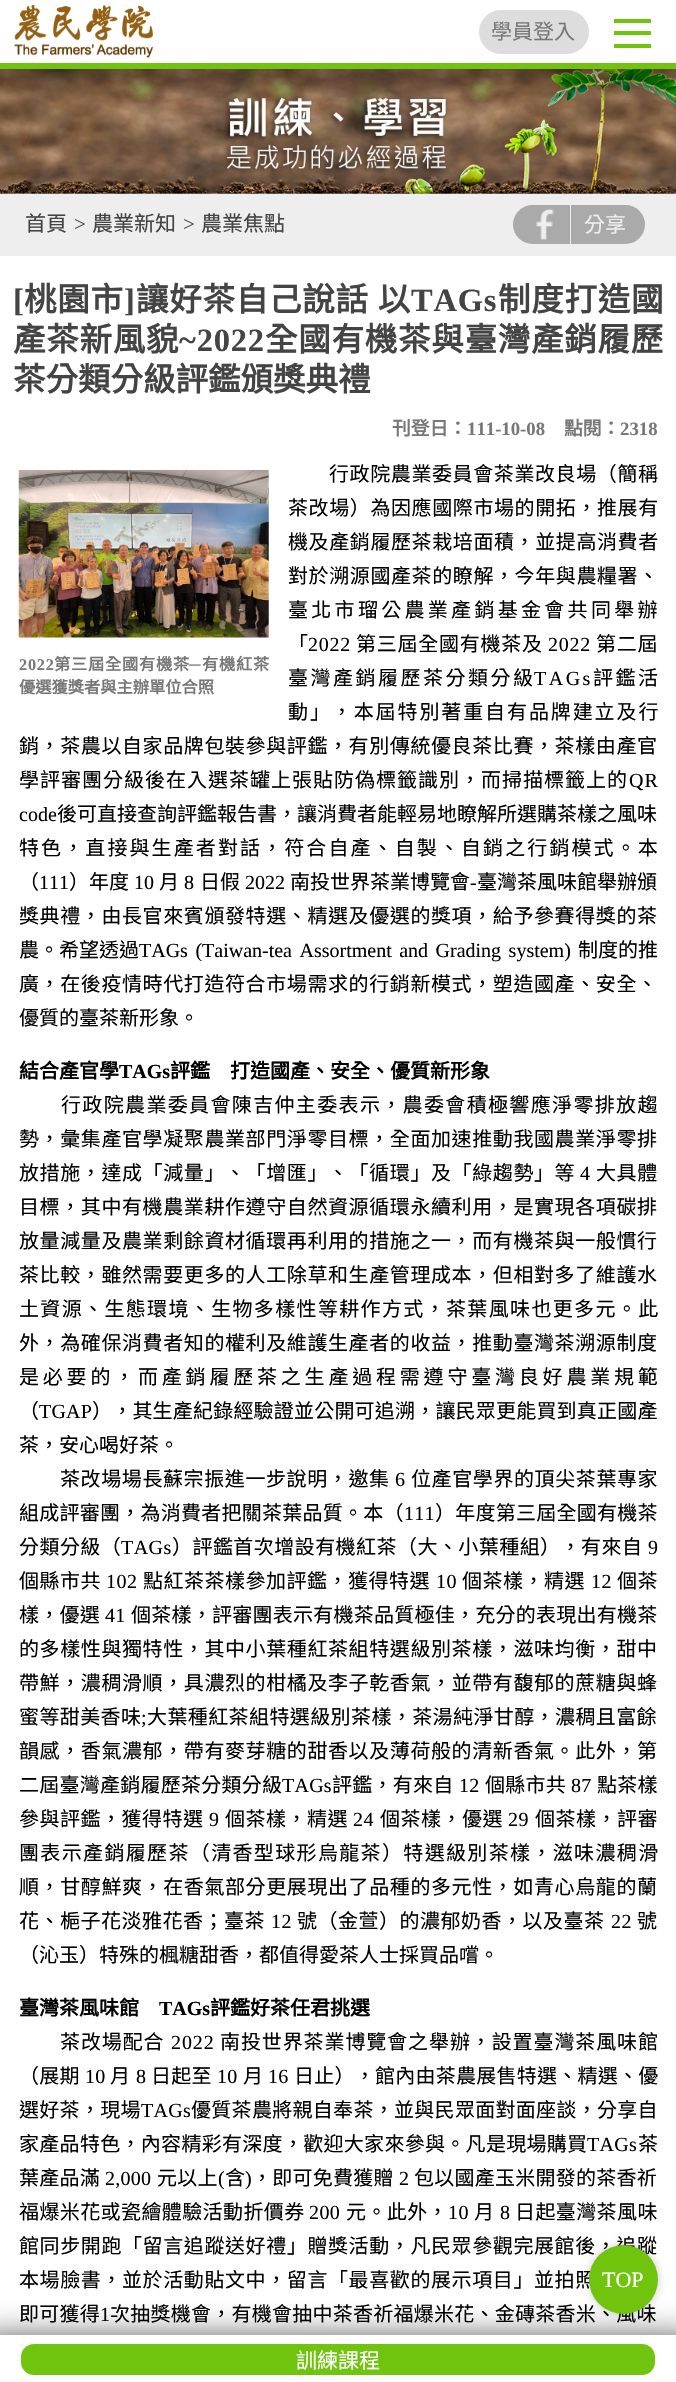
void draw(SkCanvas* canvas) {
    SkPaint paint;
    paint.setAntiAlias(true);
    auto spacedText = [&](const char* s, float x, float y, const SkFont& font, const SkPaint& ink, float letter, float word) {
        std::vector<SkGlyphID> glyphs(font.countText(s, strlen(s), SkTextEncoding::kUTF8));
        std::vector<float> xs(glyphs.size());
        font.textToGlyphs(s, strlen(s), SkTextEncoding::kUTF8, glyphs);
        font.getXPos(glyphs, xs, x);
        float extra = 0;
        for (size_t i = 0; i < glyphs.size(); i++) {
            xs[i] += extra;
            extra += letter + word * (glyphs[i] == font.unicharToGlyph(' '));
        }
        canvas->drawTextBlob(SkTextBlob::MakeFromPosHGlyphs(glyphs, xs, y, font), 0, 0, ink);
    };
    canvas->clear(0xFFFFFFFF);
    canvas->drawImageRect(SkImages::DeferredFromEncodedData(SkData::MakeFromFileName("img2.png")), SkRect::MakeXYWH(0, 69, 676, 125), SkSamplingOptions());
    canvas->save();
    canvas->clipRect(SkRect::MakeXYWH(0, 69, 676, 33));
    paint.setColor(0xFF000000);
    paint.setMaskFilter(SkMaskFilter::MakeBlur(kNormal_SkBlurStyle, 19));
    canvas->drawRect(SkRect::MakeXYWH(-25, -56, 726, 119), paint);
    paint.setMaskFilter(nullptr);
    canvas->restore();
    canvas->drawImageRect(SkImages::DeferredFromEncodedData(SkData::MakeFromFileName("img1.png")), SkRect::MakeXYWH(14, 5, 139, 53), SkSamplingOptions());
    paint.setColor(0xFF70C40D);
    canvas->drawRect(SkRect::MakeXYWH(614, 19, 37, 4), paint);
    canvas->drawRect(SkRect::MakeXYWH(614, 31, 37, 4), paint);
    canvas->drawRect(SkRect::MakeXYWH(614, 44, 37, 4), paint);
    paint.setColor(0xFFDDDDDD);
    canvas->drawRoundRect(SkRect::MakeXYWH(479, 10, 110, 44), 22, 22, paint);
    SkFont font1(fontMgr->matchFamilyStyle("Noto Sans CJK TC", SkFontStyle::Normal()), 21);
    font1.setSubpixel(true);
    paint.setColor(0xFF777777);
    canvas->drawString("學員登入", 491, 39, font1, paint);
    paint.setColor(0xFF70C40D);
    canvas->drawRect(SkRect::MakeXYWH(0, 63, 676, 6), paint);
    paint.setColor(0xFFEEEEEE);
    canvas->drawRect(SkRect::MakeXYWH(0, 194, 676, 62), paint);
    paint.setColor(0xFF444444);
    canvas->drawString("首頁", 25, 231, font1, paint);
    SkFont font2(fontMgr->matchFamilyStyle("Liberation Serif", SkFontStyle::Normal()), 21);
    font2.setSubpixel(true);
    canvas->drawString(">", 74, 231, font2, paint);
    canvas->drawString("農業新知", 92, 231, font1, paint);
    canvas->drawString(">", 183, 231, font2, paint);
    canvas->drawString("農業焦點", 201, 231, font1, paint);
    paint.setColor(0xFFAAAAAA);
    canvas->drawRoundRect(SkRect::MakeXYWH(513, 205, 132, 39), 19.5f, 19.5f, paint);
    canvas->drawImageRect(SkImages::DeferredFromEncodedData(SkData::MakeFromFileName("img3.png")), SkRect::MakeXYWH(536, 208, 18, 32), SkSamplingOptions());
    paint.setColor(0xFFEEEEEE);
    canvas->drawRect(SkRect::MakeXYWH(570, 205, 1, 39), paint);
    canvas->drawString("分享", 584, 232, font1, paint);
    SkFont font3(fontMgr->matchFamilyStyle("Liberation Serif", SkFontStyle::Bold()), 32.5f);
    font3.setSubpixel(true);
    paint.setColor(0xFF444444);
    spacedText("[", 13, 311, font3, paint, 0.75f, 0);
    SkFont font4(fontMgr->matchFamilyStyle("Noto Sans CJK TC", SkFontStyle::Bold()), 32.5f);
    font4.setSubpixel(true);
    spacedText("桃園市", 24, 311, font4, paint, 0.75f, 0);
    spacedText("]", 124, 311, font3, paint, 0.75f, 0);
    spacedText("讓好茶自己說話 以", 136, 311, font4, paint, 0.75f, 1);
    spacedText("TAGs", 411, 311, font3, paint, 0.75f, 0);
    spacedText("制度打造國", 498, 311, font4, paint, 0.75f, 0);
    spacedText("產茶新風貌", 13, 351, font4, paint, 0.75f, 0);
    spacedText("~2022", 179, 351, font3, paint, 0.75f, 0);
    spacedText("全國有機茶與臺灣產銷履歷", 265, 351, font4, paint, 0.75f, 0);
    canvas->drawString("茶分類分級評鑑頒獎典禮", 13, 391, font4, paint);
    SkFont font5(fontMgr->matchFamilyStyle("Noto Sans CJK TC", SkFontStyle::Bold()), 18.75f);
    font5.setSubpixel(true);
    paint.setColor(0xFF777777);
    canvas->drawString("刊登日：", 392, 435, font5, paint);
    SkFont font6(fontMgr->matchFamilyStyle("Liberation Serif", SkFontStyle::Bold()), 18.75f);
    font6.setSubpixel(true);
    canvas->drawString("111-10-08", 467, 435, font6, paint);
    canvas->drawString("點閱：", 564, 435, font5, paint);
    canvas->drawString("2318", 620, 435, font6, paint);
    SkFont font7(fontMgr->matchFamilyStyle("Noto Sans CJK TC", SkFontStyle::Normal()), 20);
    font7.setSubpixel(true);
    paint.setColor(0xFF000000);
    spacedText("行政院農業委員會茶業改良場（簡稱", 329, 481, font7, paint, 0.6f, 0);
    spacedText("茶改場）為因應國際市場的開拓，推展有", 288, 515, font7, paint, 0.6f, 0);
    spacedText("機及產銷履歷茶栽培面積，並提高消費者", 288, 549, font7, paint, 0.6f, 0);
    spacedText("對於溯源國產茶的瞭解，今年與農糧署、", 288, 583, font7, paint, 0.6f, 0);
    spacedText("臺北市瑠公農業產銷基金會共同舉辦", 288, 617, font7, paint, 3.3f, 0);
    spacedText("「", 288, 651, font7, paint, 0.75f, 0);
    SkFont font8(fontMgr->matchFamilyStyle("Liberation Serif", SkFontStyle::Normal()), 20);
    font8.setSubpixel(true);
    spacedText("2022", 308, 651, font8, paint, 0.75f, 0);
    spacedText("第三屆全國有機茶及", 356, 651, font7, paint, 0.75f, 0);
    spacedText("2022", 548, 651, font8, paint, 0.75f, 0);
    spacedText("第二屆", 596, 651, font7, paint, 0.75f, 0);
    spacedText("臺灣產銷履歷茶分類分級", 288, 685, font7, paint, 2.5f, 0);
    spacedText("TAGs", 534, 685, font8, paint, 2.5f, 0);
    spacedText("評鑑活", 593, 685, font7, paint, 2.5f, 0);
    spacedText("動」，本屆特別著重自有品牌建立及行", 288, 719, font7, paint, 1.9f, 0);
    spacedText("銷，茶農以自家品牌包裝參與評鑑，有別傳統優良茶比賽，茶樣由產官", 19, 753, font7, paint, 0.6f, 0);
    spacedText("學評審團分級後在入選茶罐上張貼防偽標籤識別，而掃描標籤上的", 19, 787, font7, paint, 1, 0);
    spacedText("QR", 629, 787, font8, paint, 1, 0);
    canvas->drawString("code", 19, 821, font8, paint);
    canvas->drawString("後可直接查詢評鑑報告書，讓消費者能輕易地瞭解所選購茶樣之風味", 57, 821, font7, paint);
    spacedText("特色，直接與生產者對話，符合自產、自製、自銷之行銷模式。本", 19, 855, font7, paint, 2.1f, 0);
    canvas->drawString("（", 19, 889, font7, paint);
    canvas->drawString("111", 39, 889, font8, paint);
    canvas->drawString("）年度", 69, 889, font7, paint);
    canvas->drawString("10", 134, 889, font8, paint);
    canvas->drawString("月", 159, 889, font7, paint);
    canvas->drawString("8", 184, 889, font8, paint);
    canvas->drawString("日假", 200, 889, font7, paint);
    canvas->drawString("2022", 245, 889, font8, paint);
    canvas->drawString("南投世界茶業博覽會", 290, 889, font7, paint);
    canvas->drawString("-", 470, 889, font8, paint);
    canvas->drawString("臺灣茶風味館舉辦頒", 477, 889, font7, paint);
    spacedText("獎典禮，由長官來賓頒發特選、精選及優選的獎項，給予參賽得獎的茶", 19, 923, font7, paint, 0.6f, 0);
    canvas->drawString("農。希望透過", 19, 957, font7, paint);
    spacedText("TAGs (Taiwan-tea Assortment and Grading system)", 139, 957, font8, paint, 0, 2.5f);
    canvas->drawString("制度的推", 578, 957, font7, paint);
    spacedText("廣，在後疫情時代打造符合市場需求的行銷新模式，塑造國產、安全、", 19, 991, font7, paint, 0.6f, 0);
    canvas->drawString("優質的臺茶新形象。", 19, 1025, font7, paint);
    SkFont font9(fontMgr->matchFamilyStyle("Noto Sans CJK TC", SkFontStyle::Bold()), 20);
    font9.setSubpixel(true);
    canvas->drawString("結合產官學", 19, 1078, font9, paint);
    SkFont font10(fontMgr->matchFamilyStyle("Liberation Serif", SkFontStyle::Bold()), 20);
    font10.setSubpixel(true);
    canvas->drawString("TAGs", 119, 1078, font10, paint);
    canvas->drawString("評鑑　打造國產、安全、優質新形象", 170, 1078, font9, paint);
    spacedText("行政院農業委員會陳吉仲主委表示，農委會積極響應淨零排放趨", 61, 1112, font7, paint, 1.35f, 0);
    spacedText("勢，彙集產官學凝聚農業部門淨零目標，全面加速推動我國農業淨零排", 19, 1146, font7, paint, 0.6f, 0);
    spacedText("放措施，達成「減量」、「增匯」、「循環」及「綠趨勢」等", 19, 1180, font7, paint, 0.6f, 0);
    spacedText("4", 580, 1180, font8, paint, 0.6f, 0);
    spacedText("大具體", 596, 1180, font7, paint, 0.6f, 0);
    spacedText("目標，其中有機農業耕作遵守自然資源循環永續利用，是實現各項碳排", 19, 1214, font7, paint, 0.6f, 0);
    spacedText("放量減量及農業剩餘資材循環再利用的措施之一，而有機茶與一般慣行", 19, 1248, font7, paint, 0.6f, 0);
    spacedText("茶比較，雖然需要更多的人工除草和生產管理成本，但相對多了維護水", 19, 1282, font7, paint, 0.6f, 0);
    spacedText("土資源、生態環境、生物多樣性等耕作方式，茶葉風味也更多元。此", 19, 1316, font7, paint, 1.35f, 0);
    spacedText("外，為確保消費者知的權利及維護生產者的收益，推動臺灣茶溯源制度", 19, 1350, font7, paint, 0.6f, 0);
    spacedText("是必要的，而產銷履歷茶之生產過程需遵守臺灣良好農業規範", 19, 1384, font7, paint, 3.8f, 0);
    spacedText("（", 19, 1418, font7, paint, 0.2f, 0);
    spacedText("TGAP", 39, 1418, font8, paint, 0.2f, 0);
    spacedText("），其生產紀錄經驗證並公開可追溯，讓民眾更能買到真正國產", 92, 1418, font7, paint, 0.2f, 0);
    canvas->drawString("茶，安心喝好茶。", 19, 1452, font7, paint);
    spacedText("茶改場場長蘇宗振進一步說明，邀集", 60, 1486, font7, paint, 0.6f, 0);
    spacedText("6", 395, 1486, font8, paint, 0.6f, 0);
    spacedText("位產官學界的頂尖茶葉專家", 411, 1486, font7, paint, 0.6f, 0);
    spacedText("組成評審團，為消費者把關茶葉品質。本（", 19, 1520, font7, paint, 0.25f, 0);
    spacedText("111", 404, 1520, font8, paint, 0.25f, 0);
    spacedText("）年度第三屆全國有機茶", 435, 1520, font7, paint, 0.25f, 0);
    spacedText("分類分級（", 19, 1554, font7, paint, 0.45f, 0);
    spacedText("TAGs", 121, 1554, font8, paint, 0.45f, 0);
    spacedText("）評鑑首次增設有機紅茶（大、小葉種組），有來自", 172, 1554, font7, paint, 0.45f, 0);
    spacedText("9", 648, 1554, font8, paint, 0.45f, 0);
    spacedText("個縣市共", 19, 1588, font7, paint, 0.5f, 0);
    spacedText("102", 106, 1588, font8, paint, 0.5f, 0);
    spacedText("點紅茶茶樣參加評鑑，獲得特選", 143, 1588, font7, paint, 0.5f, 0);
    spacedText("10", 436, 1588, font8, paint, 0.5f, 0);
    spacedText("個茶樣，精選", 462, 1588, font7, paint, 0.5f, 0);
    spacedText("12", 591, 1588, font8, paint, 0.5f, 0);
    spacedText("個茶", 617, 1588, font7, paint, 0.5f, 0);
    spacedText("樣，優選", 19, 1622, font7, paint, 0.25f, 0);
    spacedText("41", 105, 1622, font8, paint, 0.25f, 0);
    spacedText("個茶樣，評審團表示有機茶品質極佳，充分的表現出有機茶", 131, 1622, font7, paint, 0.25f, 0);
    spacedText("的多樣性與獨特性，其中小葉種紅茶組特選級別茶樣，滋味均衡，甜中", 19, 1656, font7, paint, 0.6f, 0);
    spacedText("帶鮮，濃稠滑順，具濃烈的柑橘及李子乾香氣，並帶有馥郁的蔗糖與蜂", 19, 1690, font7, paint, 0.6f, 0);
    spacedText("蜜等甜美香味", 19, 1724, font7, paint, 0.4f, 0);
    spacedText(";", 141, 1724, font8, paint, 0.4f, 0);
    spacedText("大葉種紅茶組特選級別茶樣，茶湯純淨甘醇，濃稠且富餘", 147, 1724, font7, paint, 0.4f, 0);
    spacedText("韻感，香氣濃郁，帶有麥芽糖的甜香以及薄荷般的清新香氣。此外，第", 19, 1758, font7, paint, 0.6f, 0);
    spacedText("二屆臺灣產銷履歷茶分類分級", 19, 1792, font7, paint, 0.25f, 0);
    spacedText("TAGs", 282, 1792, font8, paint, 0.25f, 0);
    spacedText("評鑑，有來自", 332, 1792, font7, paint, 0.25f, 0);
    spacedText("12", 459, 1792, font8, paint, 0.25f, 0);
    spacedText("個縣市共", 485, 1792, font7, paint, 0.25f, 0);
    spacedText("87", 571, 1792, font8, paint, 0.25f, 0);
    spacedText("點茶樣", 597, 1792, font7, paint, 0.25f, 0);
    spacedText("參與評鑑，獲得特選", 19, 1826, font7, paint, 0.5f, 0);
    spacedText("9", 209, 1826, font8, paint, 0.5f, 0);
    spacedText("個茶樣，精選", 225, 1826, font7, paint, 0.5f, 0);
    spacedText("24", 353, 1826, font8, paint, 0.5f, 0);
    spacedText("個茶樣，優選", 380, 1826, font7, paint, 0.5f, 0);
    spacedText("29", 508, 1826, font8, paint, 0.5f, 0);
    spacedText("個茶樣，評審", 535, 1826, font7, paint, 0.5f, 0);
    spacedText("團表示產銷履歷茶（清香型球形烏龍茶）特選級別茶樣，滋味濃稠滑", 19, 1860, font7, paint, 1.35f, 0);
    spacedText("順，甘醇鮮爽，在香氣部分更展現出了品種的多元性，如青心烏龍的蘭", 19, 1894, font7, paint, 0.6f, 0);
    spacedText("花、梔子花淡雅花香；臺茶", 19, 1928, font7, paint, 0.5f, 0);
    spacedText("12", 271, 1928, font8, paint, 0.5f, 0);
    spacedText("號（金萱）的濃郁奶香，以及臺茶", 297, 1928, font7, paint, 0.5f, 0);
    spacedText("22", 611, 1928, font8, paint, 0.5f, 0);
    spacedText("號", 637, 1928, font7, paint, 0.5f, 0);
    canvas->drawString("（沁玉）特殊的楓糖甜香，都值得愛茶人士採買品嚐。", 19, 1962, font7, paint);
    canvas->drawString("臺灣茶風味館", 19, 2015, font9, paint);
    canvas->drawString("TAGs", 159, 2015, font10, paint);
    canvas->drawString("評鑑好茶任君挑選", 210, 2015, font9, paint);
    spacedText("茶改場配合", 60, 2049, font7, paint, 0.9f, 0);
    spacedText("2022", 171, 2049, font8, paint, 0.9f, 0);
    spacedText("南投世界茶業博覽會之舉辦，設置臺灣茶風味館", 220, 2049, font7, paint, 0.9f, 0);
    spacedText("（展期", 19, 2083, font7, paint, 0.25f, 0);
    spacedText("10", 85, 2083, font8, paint, 0.25f, 0);
    spacedText("月", 110, 2083, font7, paint, 0.25f, 0);
    spacedText("8", 136, 2083, font8, paint, 0.25f, 0);
    spacedText("日起至", 151, 2083, font7, paint, 0.25f, 0);
    spacedText("10", 217, 2083, font8, paint, 0.25f, 0);
    spacedText("月", 243, 2083, font7, paint, 0.25f, 0);
    spacedText("16", 268, 2083, font8, paint, 0.25f, 0);
    spacedText("日止），館內由茶農展售特選、精選、優", 294, 2083, font7, paint, 0.25f, 0);
    spacedText("選好茶，現場", 19, 2117, font7, paint, 0.3f, 0);
    spacedText("TAGs", 141, 2117, font8, paint, 0.3f, 0);
    spacedText("優質茶農將親自奉茶，並與民眾面對面座談，分享自", 191, 2117, font7, paint, 0.3f, 0);
    spacedText("家產品特色，內容精彩有深度，歡迎大家來參與。凡是現場購買", 19, 2151, font7, paint, 0.3f, 0);
    spacedText("TAGs", 587, 2151, font8, paint, 0.3f, 0);
    spacedText("茶", 638, 2151, font7, paint, 0.3f, 0);
    spacedText("葉產品滿", 19, 2185, font7, paint, 0.25f, 0);
    spacedText("2,000", 105, 2185, font8, paint, 0.25f, 0);
    spacedText("元以上", 157, 2185, font7, paint, 0.25f, 0);
    spacedText("(", 218, 2185, font8, paint, 0.25f, 0);
    spacedText("含", 225, 2185, font7, paint, 0.25f, 0);
    spacedText(")", 245, 2185, font8, paint, 0.25f, 0);
    spacedText("，即可免費獲贈", 252, 2185, font7, paint, 0.25f, 0);
    spacedText("2", 399, 2185, font8, paint, 0.25f, 0);
    spacedText("包以國產玉米開發的茶香祈", 414, 2185, font7, paint, 0.25f, 0);
    spacedText("福爆米花或瓷繪體驗活動折價券", 19, 2219, font7, paint, 0.4f, 0);
    spacedText("200", 309, 2219, font8, paint, 0.4f, 0);
    spacedText("元。此外，", 346, 2219, font7, paint, 0.4f, 0);
    spacedText("10", 448, 2219, font8, paint, 0.4f, 0);
    spacedText("月", 474, 2219, font7, paint, 0.4f, 0);
    spacedText("8", 500, 2219, font8, paint, 0.4f, 0);
    spacedText("日起臺灣茶風味", 515, 2219, font7, paint, 0.4f, 0);
    spacedText("館同步開跑「留言追蹤送好禮」贈獎活動，凡民眾參觀完展館後，追蹤", 19, 2253, font7, paint, 0.6f, 0);
    spacedText("本場臉書，並於活動貼文中，留言「最喜歡的展示項目」並拍照", 19, 2287, font7, paint, 0.6f, 0);
    spacedText("即可獲得", 19, 2321, font7, paint, 0.25f, 0);
    spacedText("1", 100, 2321, font8, paint, 0.25f, 0);
    spacedText("次抽獎機會，有機會抽中茶香祈福爆米花、金磚茶香米、風味", 110, 2321, font7, paint, 0.25f, 0);
    canvas->drawImageRect(SkImages::DeferredFromEncodedData(SkData::MakeFromFileName("img4.png")), SkRect::MakeXYWH(18, 470, 251, 168), SkSamplingOptions());
    SkFont font11(fontMgr->matchFamilyStyle("Liberation Serif", SkFontStyle::Bold()), 16.25f);
    font11.setSubpixel(true);
    paint.setColor(0xFF777777);
    spacedText("2022", 19, 670, font11, paint, 0.75f, 0);
    SkFont font12(fontMgr->matchFamilyStyle("Noto Sans CJK TC", SkFontStyle::Bold()), 16.25f);
    font12.setSubpixel(true);
    spacedText("第三屆全國有機茶", 54, 670, font12, paint, 0.75f, 0);
    spacedText("─", 189, 670, font11, paint, 0.75f, 0);
    spacedText("有機紅茶", 202, 670, font12, paint, 0.75f, 0);
    canvas->drawString("優選獲獎者與主辦單位合照", 19, 693, font12, paint);
    paint.setColor(0xFF000000);
    paint.setMaskFilter(SkMaskFilter::MakeBlur(kNormal_SkBlurStyle, 19));
    canvas->drawRect(SkRect::MakeXYWH(-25, 2344, 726, 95), paint);
    paint.setMaskFilter(nullptr);
    paint.setColor(0xFFFFFFFF);
    canvas->drawRect(SkRect::MakeXYWH(0, 2335, 676, 47), paint);
    paint.setColor(0xFF70C40D);
    canvas->drawRoundRect(SkRect::MakeXYWH(21, 2344, 634, 31), 13, 13, paint);
    paint.setColor(0xFFFFFFFF);
    canvas->drawString("訓練課程", 296, 2368, font1, paint);
    paint.setColor(0x33000000);
    paint.setMaskFilter(SkMaskFilter::MakeBlur(kNormal_SkBlurStyle, 5));
    canvas->drawRoundRect(SkRect::MakeXYWH(589, 2245, 69, 69), 34.5f, 34.5f, paint);
    paint.setMaskFilter(nullptr);
    paint.setColor(0xFF70C40D);
    canvas->drawCircle(623.5f, 2279.5f, 34.5f, paint);
    SkFont font13(fontMgr->matchFamilyStyle("Liberation Serif", SkFontStyle::Normal()), 22);
    font13.setSubpixel(true);
    paint.setColor(0xFFFFFFFF);
    canvas->drawString("TOP", 602, 2287, font13, paint);
}
